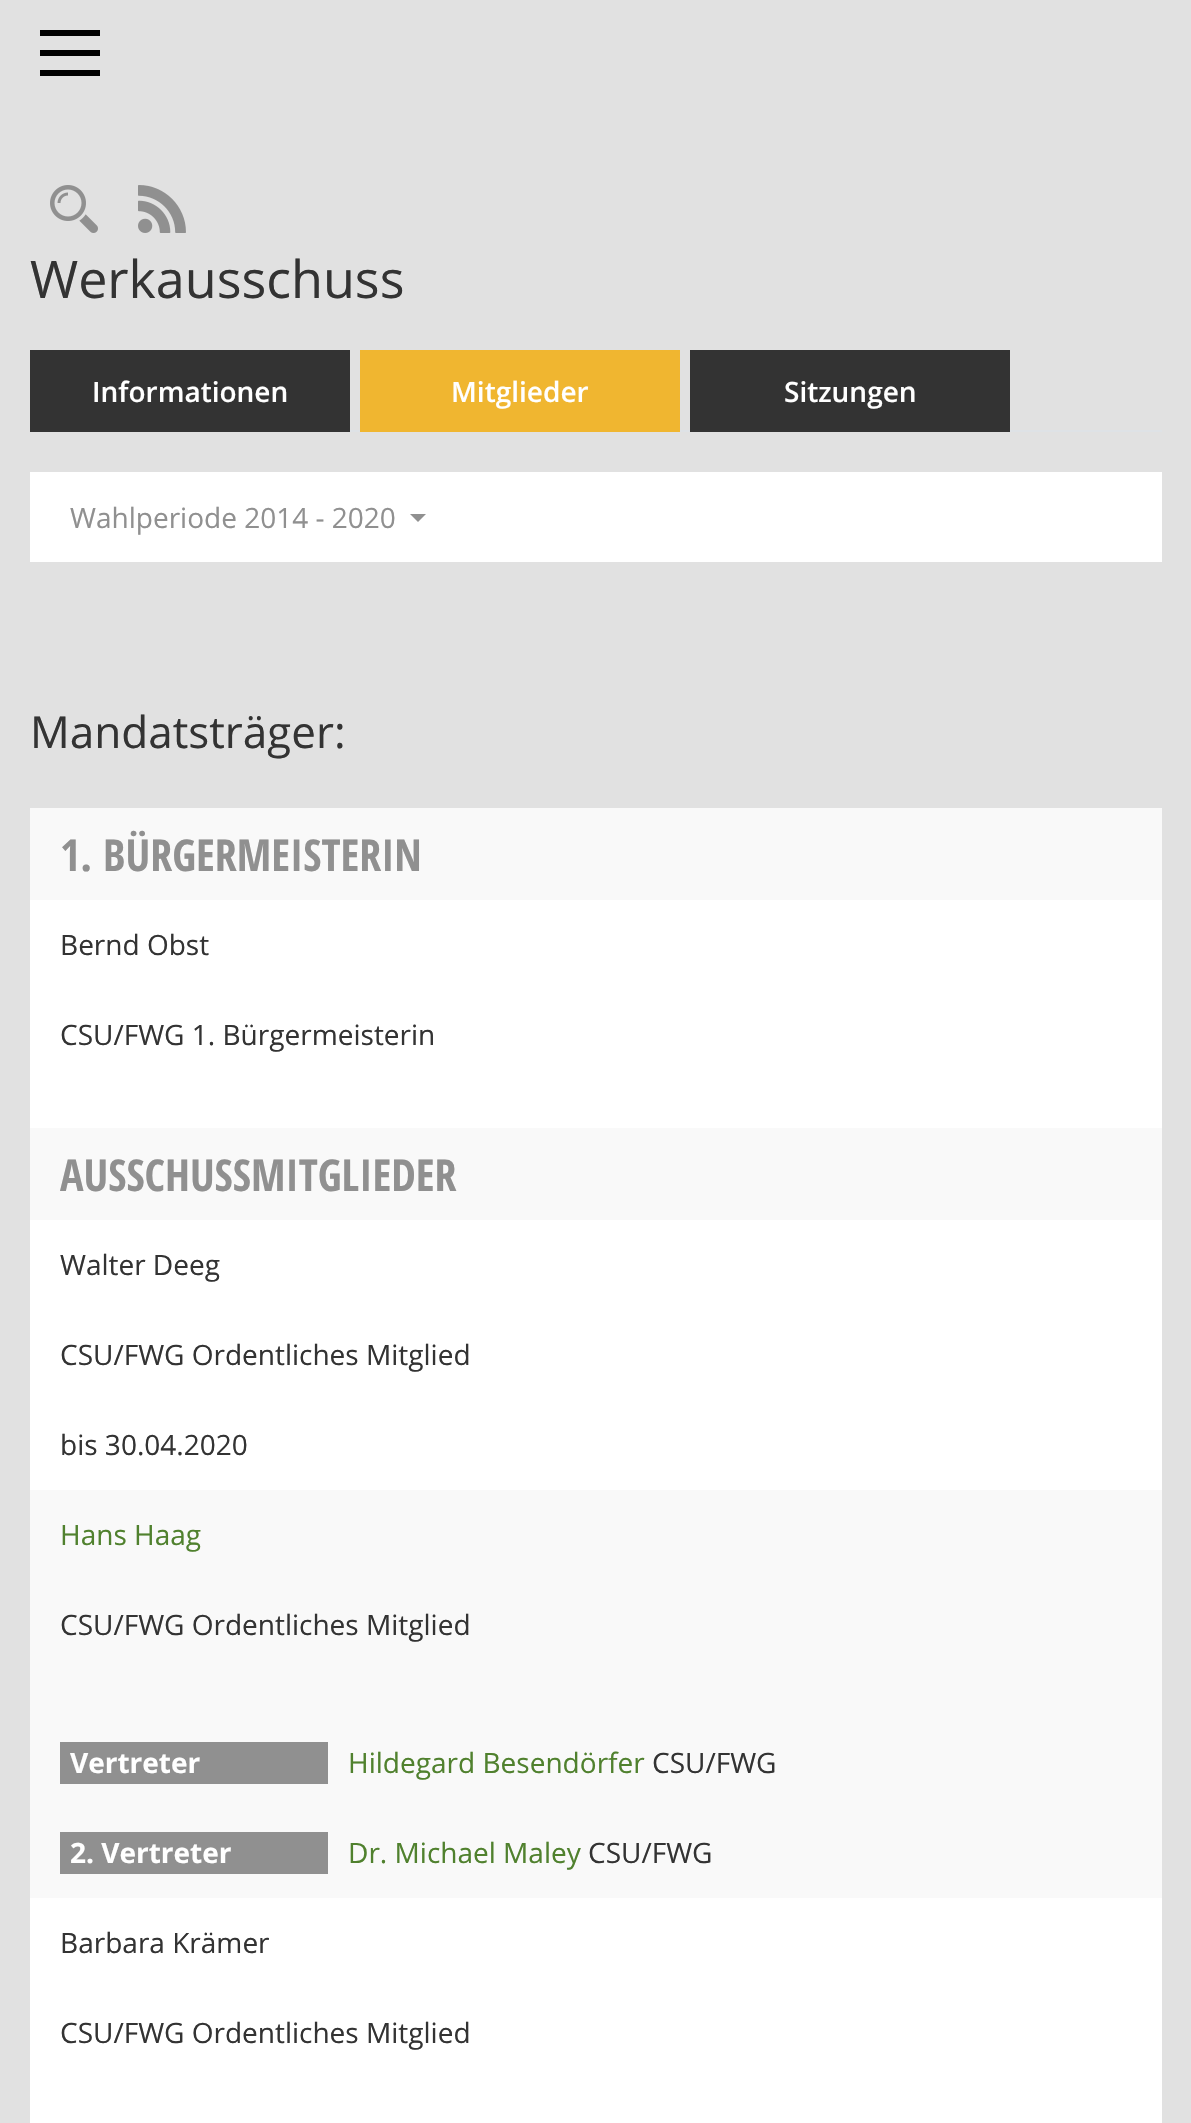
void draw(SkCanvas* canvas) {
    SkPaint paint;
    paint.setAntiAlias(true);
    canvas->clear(0xFFE1E1E1);
    paint.setColor(0xFF000000);
    canvas->drawRect(SkRect::MakeXYWH(40, 30, 60, 6), paint);
    canvas->drawRect(SkRect::MakeXYWH(40, 50, 60, 6), paint);
    canvas->drawRect(SkRect::MakeXYWH(40, 70, 60, 6), paint);
    canvas->drawImageRect(SkImages::DeferredFromEncodedData(SkData::MakeFromFileName("img1.png")), SkRect::MakeXYWH(50, 185, 48, 48), SkSamplingOptions());
    canvas->drawImageRect(SkImages::DeferredFromEncodedData(SkData::MakeFromFileName("img2.png")), SkRect::MakeXYWH(138, 185, 48, 48), SkSamplingOptions());
    SkFont font1(fontMgr->matchFamilyStyle("Open Sans", SkFontStyle::Normal()), 52);
    font1.setSubpixel(true);
    paint.setColor(0xFF333333);
    canvas->drawString("Werkausschuss", 30, 298, font1, paint);
    paint.setColor(0xFFDEE2E6);
    canvas->drawRect(SkRect::MakeXYWH(350, 430, 812, 2), paint);
    paint.setColor(0xFF333333);
    canvas->drawRect(SkRect::MakeXYWH(30, 350, 320, 82), paint);
    SkFont font2(fontMgr->matchFamilyStyle("Open Sans", SkFontStyle(600, SkFontStyle::kNormal_Width, SkFontStyle::kUpright_Slant)), 28);
    font2.setSubpixel(true);
    paint.setColor(0xFFFFFFFF);
    canvas->drawString("Informationen", 92, 402, font2, paint);
    paint.setColor(0xFFF0B630);
    canvas->drawRect(SkRect::MakeXYWH(360, 350, 320, 82), paint);
    paint.setColor(0xFFFFFFFF);
    canvas->drawString("Mitglieder", 451, 402, font2, paint);
    paint.setColor(0xFF333333);
    canvas->drawRect(SkRect::MakeXYWH(690, 350, 320, 82), paint);
    paint.setColor(0xFFFFFFFF);
    canvas->drawString("Sitzungen", 784, 402, font2, paint);
    canvas->drawRect(SkRect::MakeXYWH(30, 472, 1132, 90), paint);
    SkFont font3(fontMgr->matchFamilyStyle("Open Sans", SkFontStyle::Normal()), 28);
    font3.setSubpixel(true);
    paint.setColor(0xFF909090);
    canvas->drawString("Wahlperiode 2014 - 2020", 70, 528, font3, paint);
    canvas->drawPath(SkPathBuilder().moveTo(410, 514).lineTo(426, 514).lineTo(418, 522).close().detach(), paint);
    SkFont font4(fontMgr->matchFamilyStyle("Open Sans", SkFontStyle::Normal()), 44);
    font4.setSubpixel(true);
    paint.setColor(0xFF333333);
    canvas->drawString("Mandatsträger:", 30, 748, font4, paint);
    paint.setColor(0xFFFFFFFF);
    canvas->drawRect(SkRect::MakeXYWH(30, 900, 1132, 1223), paint);
    paint.setColor(0xFFF9F9F9);
    canvas->drawRect(SkRect::MakeXYWH(30, 808, 1132, 92), paint);
    SkFont font5(fontMgr->matchFamilyStyle("Open Sans Condensed", SkFontStyle::Bold()), 44);
    font5.setSubpixel(true);
    paint.setColor(0xFF909090);
    canvas->drawString("1. BÜRGERMEISTERIN", 60, 871, font5, paint);
    paint.setColor(0xFF333333);
    canvas->drawString("Bernd Obst", 60, 955, font3, paint);
    canvas->drawString("CSU/FWG 1. Bürgermeisterin", 60, 1045, font3, paint);
    paint.setColor(0xFFF9F9F9);
    canvas->drawRect(SkRect::MakeXYWH(30, 1128, 1132, 92), paint);
    paint.setColor(0xFF909090);
    canvas->drawString("AUSSCHUSSMITGLIEDER", 60, 1191, font5, paint);
    paint.setColor(0xFF333333);
    canvas->drawString("Walter Deeg", 60, 1275, font3, paint);
    canvas->drawString("CSU/FWG Ordentliches Mitglied", 60, 1365, font3, paint);
    canvas->drawString("bis 30.04.2020", 60, 1455, font3, paint);
    paint.setColor(0xFFF9F9F9);
    canvas->drawRect(SkRect::MakeXYWH(30, 1490, 1132, 408), paint);
    paint.setColor(0xFF50812E);
    canvas->drawString("Hans Haag", 60, 1545, font3, paint);
    paint.setColor(0xFF333333);
    canvas->drawString("CSU/FWG Ordentliches Mitglied", 60, 1635, font3, paint);
    paint.setColor(0xFF909090);
    canvas->drawRect(SkRect::MakeXYWH(60, 1742, 268, 42), paint);
    SkFont font6(fontMgr->matchFamilyStyle("Open Sans", SkFontStyle::Bold()), 28);
    font6.setSubpixel(true);
    paint.setColor(0xFFFFFFFF);
    canvas->drawString("Vertreter", 70, 1773, font6, paint);
    paint.setColor(0xFF50812E);
    canvas->drawString("Hildegard Besendörfer", 348, 1773, font3, paint);
    paint.setColor(0xFF333333);
    canvas->drawString("CSU/FWG", 652, 1773, font3, paint);
    paint.setColor(0xFF909090);
    canvas->drawRect(SkRect::MakeXYWH(60, 1832, 268, 42), paint);
    paint.setColor(0xFFFFFFFF);
    canvas->drawString("2. Vertreter", 70, 1863, font6, paint);
    paint.setColor(0xFF50812E);
    canvas->drawString("Dr. Michael Maley", 348, 1863, font3, paint);
    paint.setColor(0xFF333333);
    canvas->drawString("CSU/FWG", 588, 1863, font3, paint);
    canvas->drawString("Barbara Krämer", 60, 1953, font3, paint);
    canvas->drawString("CSU/FWG Ordentliches Mitglied", 60, 2043, font3, paint);
}
